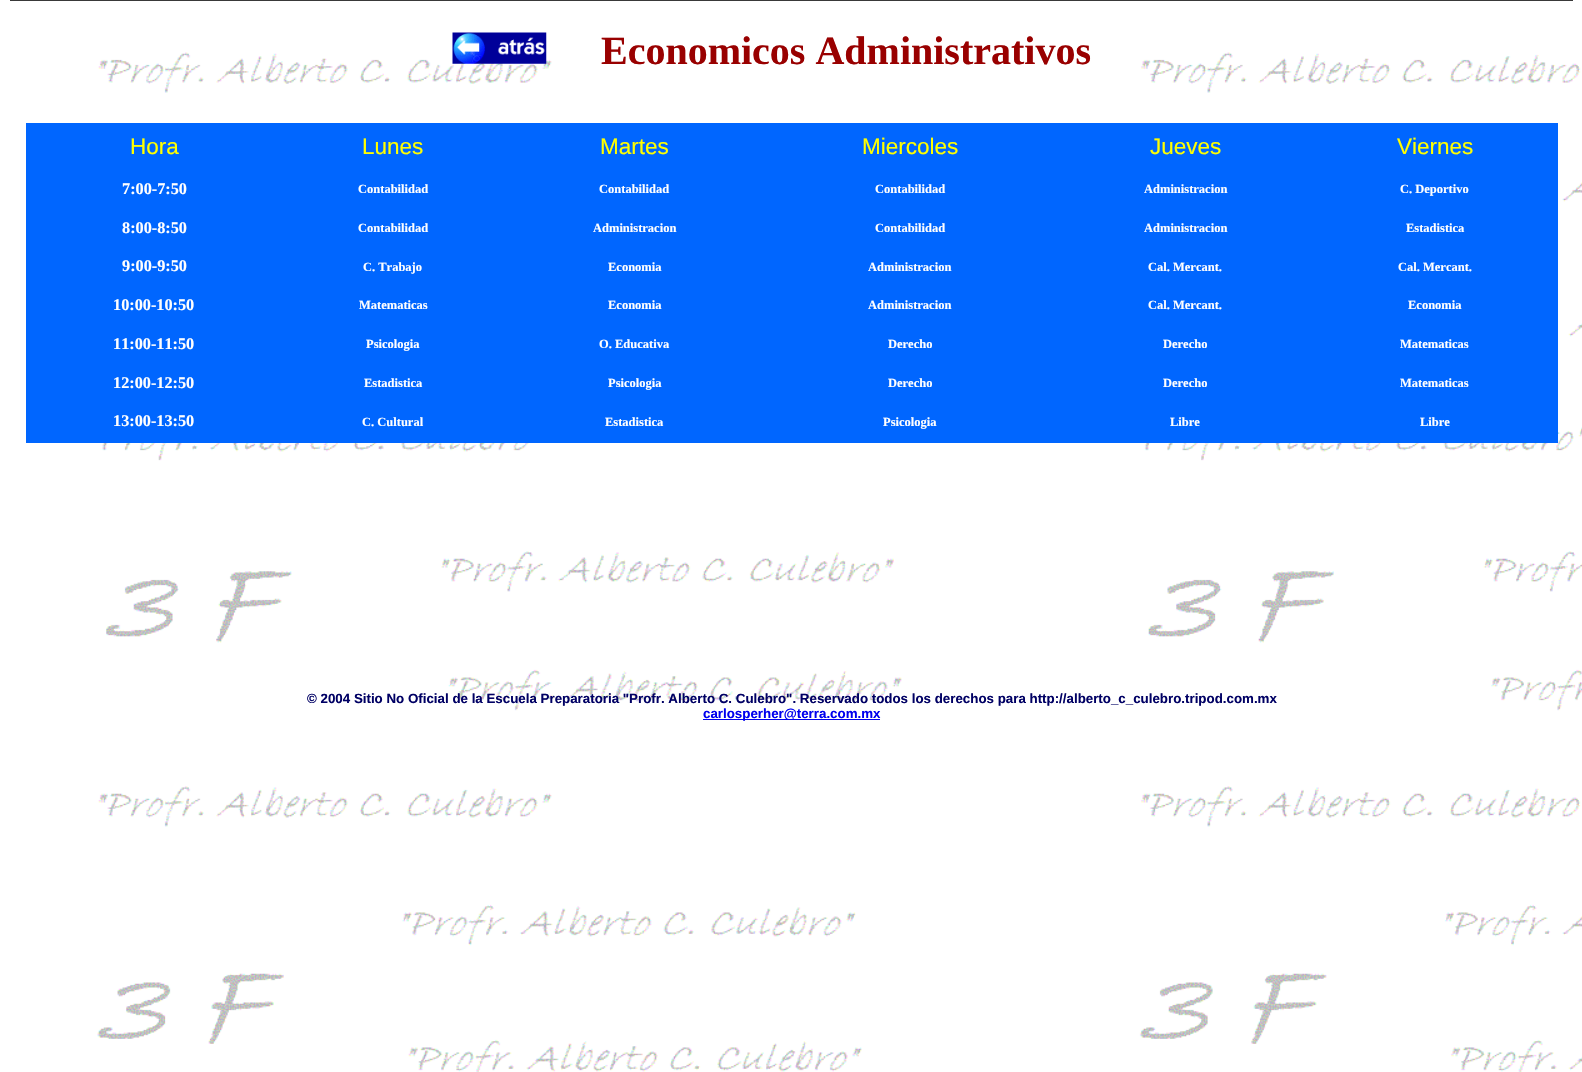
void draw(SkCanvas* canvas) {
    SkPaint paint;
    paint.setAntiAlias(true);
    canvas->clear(0xFFFFFFFF);
    canvas->drawImageRect(SkImages::DeferredFromEncodedData(SkData::MakeFromFileName("img1.png")), SkRect::MakeXYWH(0, 0, 1582, 1072), SkSamplingOptions());
    paint.setColor(0xFF393939);
    canvas->drawRect(SkRect::MakeXYWH(10, 0, 1563, 1), paint);
    canvas->drawImageRect(SkImages::DeferredFromEncodedData(SkData::MakeFromFileName("img2.png")), SkRect::MakeXYWH(452, 32, 95, 32), SkSamplingOptions());
    SkFont font1(fontMgr->matchFamilyStyle("Liberation Serif", SkFontStyle::Bold()), 40);
    font1.setSubpixel(true);
    paint.setColor(0xFF990000);
    canvas->drawString("Economicos Administrativos", 601, 64, font1, paint);
    paint.setColor(0xFF0066FF);
    canvas->drawRect(SkRect::MakeXYWH(26, 123, 1532, 320), paint);
    SkFont font2(fontMgr->matchFamilyStyle("Liberation Sans", SkFontStyle::Normal()), 22.5f);
    font2.setSubpixel(true);
    paint.setColor(0xFFFFFF00);
    canvas->drawString("Hora", 130, 154, font2, paint);
    canvas->drawString("Lunes", 362, 154, font2, paint);
    canvas->drawString("Martes", 600, 154, font2, paint);
    canvas->drawString("Miercoles", 862, 154, font2, paint);
    canvas->drawString("Jueves", 1150, 154, font2, paint);
    canvas->drawString("Viernes", 1397, 154, font2, paint);
    SkFont font3(fontMgr->matchFamilyStyle("Liberation Serif", SkFontStyle::Bold()), 16.25f);
    font3.setSubpixel(true);
    paint.setColor(0xFFFFFFFF);
    canvas->drawString("7:00-7:50", 122, 194, font3, paint);
    SkFont font4(fontMgr->matchFamilyStyle("Liberation Serif", SkFontStyle::Bold()), 12.5f);
    font4.setSubpixel(true);
    canvas->drawString("Contabilidad", 358, 193, font4, paint);
    canvas->drawString("Contabilidad", 599, 193, font4, paint);
    canvas->drawString("Contabilidad", 875, 193, font4, paint);
    canvas->drawString("Administracion", 1144, 193, font4, paint);
    canvas->drawString("C. Deportivo", 1400, 193, font4, paint);
    canvas->drawString("8:00-8:50", 122, 233, font3, paint);
    canvas->drawString("Contabilidad", 358, 232, font4, paint);
    canvas->drawString("Administracion", 593, 232, font4, paint);
    canvas->drawString("Contabilidad", 875, 232, font4, paint);
    canvas->drawString("Administracion", 1144, 232, font4, paint);
    canvas->drawString("Estadistica", 1406, 232, font4, paint);
    canvas->drawString("9:00-9:50", 122, 271, font3, paint);
    canvas->drawString("C. Trabajo", 363, 271, font4, paint);
    canvas->drawString("Economia", 608, 271, font4, paint);
    canvas->drawString("Administracion", 868, 271, font4, paint);
    canvas->drawString("Cal. Mercant.", 1148, 271, font4, paint);
    canvas->drawString("Cal. Mercant.", 1398, 271, font4, paint);
    canvas->drawString("10:00-10:50", 113, 310, font3, paint);
    canvas->drawString("Matematicas", 359, 309, font4, paint);
    canvas->drawString("Economia", 608, 309, font4, paint);
    canvas->drawString("Administracion", 868, 309, font4, paint);
    canvas->drawString("Cal. Mercant.", 1148, 309, font4, paint);
    canvas->drawString("Economia", 1408, 309, font4, paint);
    canvas->drawString("11:00-11:50", 113, 349, font3, paint);
    canvas->drawString("Psicologia", 366, 348, font4, paint);
    canvas->drawString("O. Educativa", 599, 348, font4, paint);
    canvas->drawString("Derecho", 888, 348, font4, paint);
    canvas->drawString("Derecho", 1163, 348, font4, paint);
    canvas->drawString("Matematicas", 1400, 348, font4, paint);
    canvas->drawString("12:00-12:50", 113, 388, font3, paint);
    canvas->drawString("Estadistica", 364, 387, font4, paint);
    canvas->drawString("Psicologia", 608, 387, font4, paint);
    canvas->drawString("Derecho", 888, 387, font4, paint);
    canvas->drawString("Derecho", 1163, 387, font4, paint);
    canvas->drawString("Matematicas", 1400, 387, font4, paint);
    canvas->drawString("13:00-13:50", 113, 426, font3, paint);
    canvas->drawString("C. Cultural", 362, 426, font4, paint);
    canvas->drawString("Estadistica", 605, 426, font4, paint);
    canvas->drawString("Psicologia", 883, 426, font4, paint);
    canvas->drawString("Libre", 1170, 426, font4, paint);
    canvas->drawString("Libre", 1420, 426, font4, paint);
    SkFont font5(fontMgr->matchFamilyStyle("Liberation Sans", SkFontStyle::Bold()), 13.33f);
    font5.setSubpixel(true);
    paint.setColor(0xFF000064);
    canvas->drawString("© 2004 Sitio No Oficial de la Escuela Preparatoria \"Profr. Alberto C. Culebro\". Reservado todos los derechos para http://alberto_c_culebro.tripod.com.mx", 307, 703, font5, paint);
    paint.setColor(0xFF0000EE);
    canvas->drawRect(SkRect::MakeXYWH(703, 719, 177, 1), paint);
    canvas->drawString("carlosperher@terra.com.mx", 703, 718, font5, paint);
}
